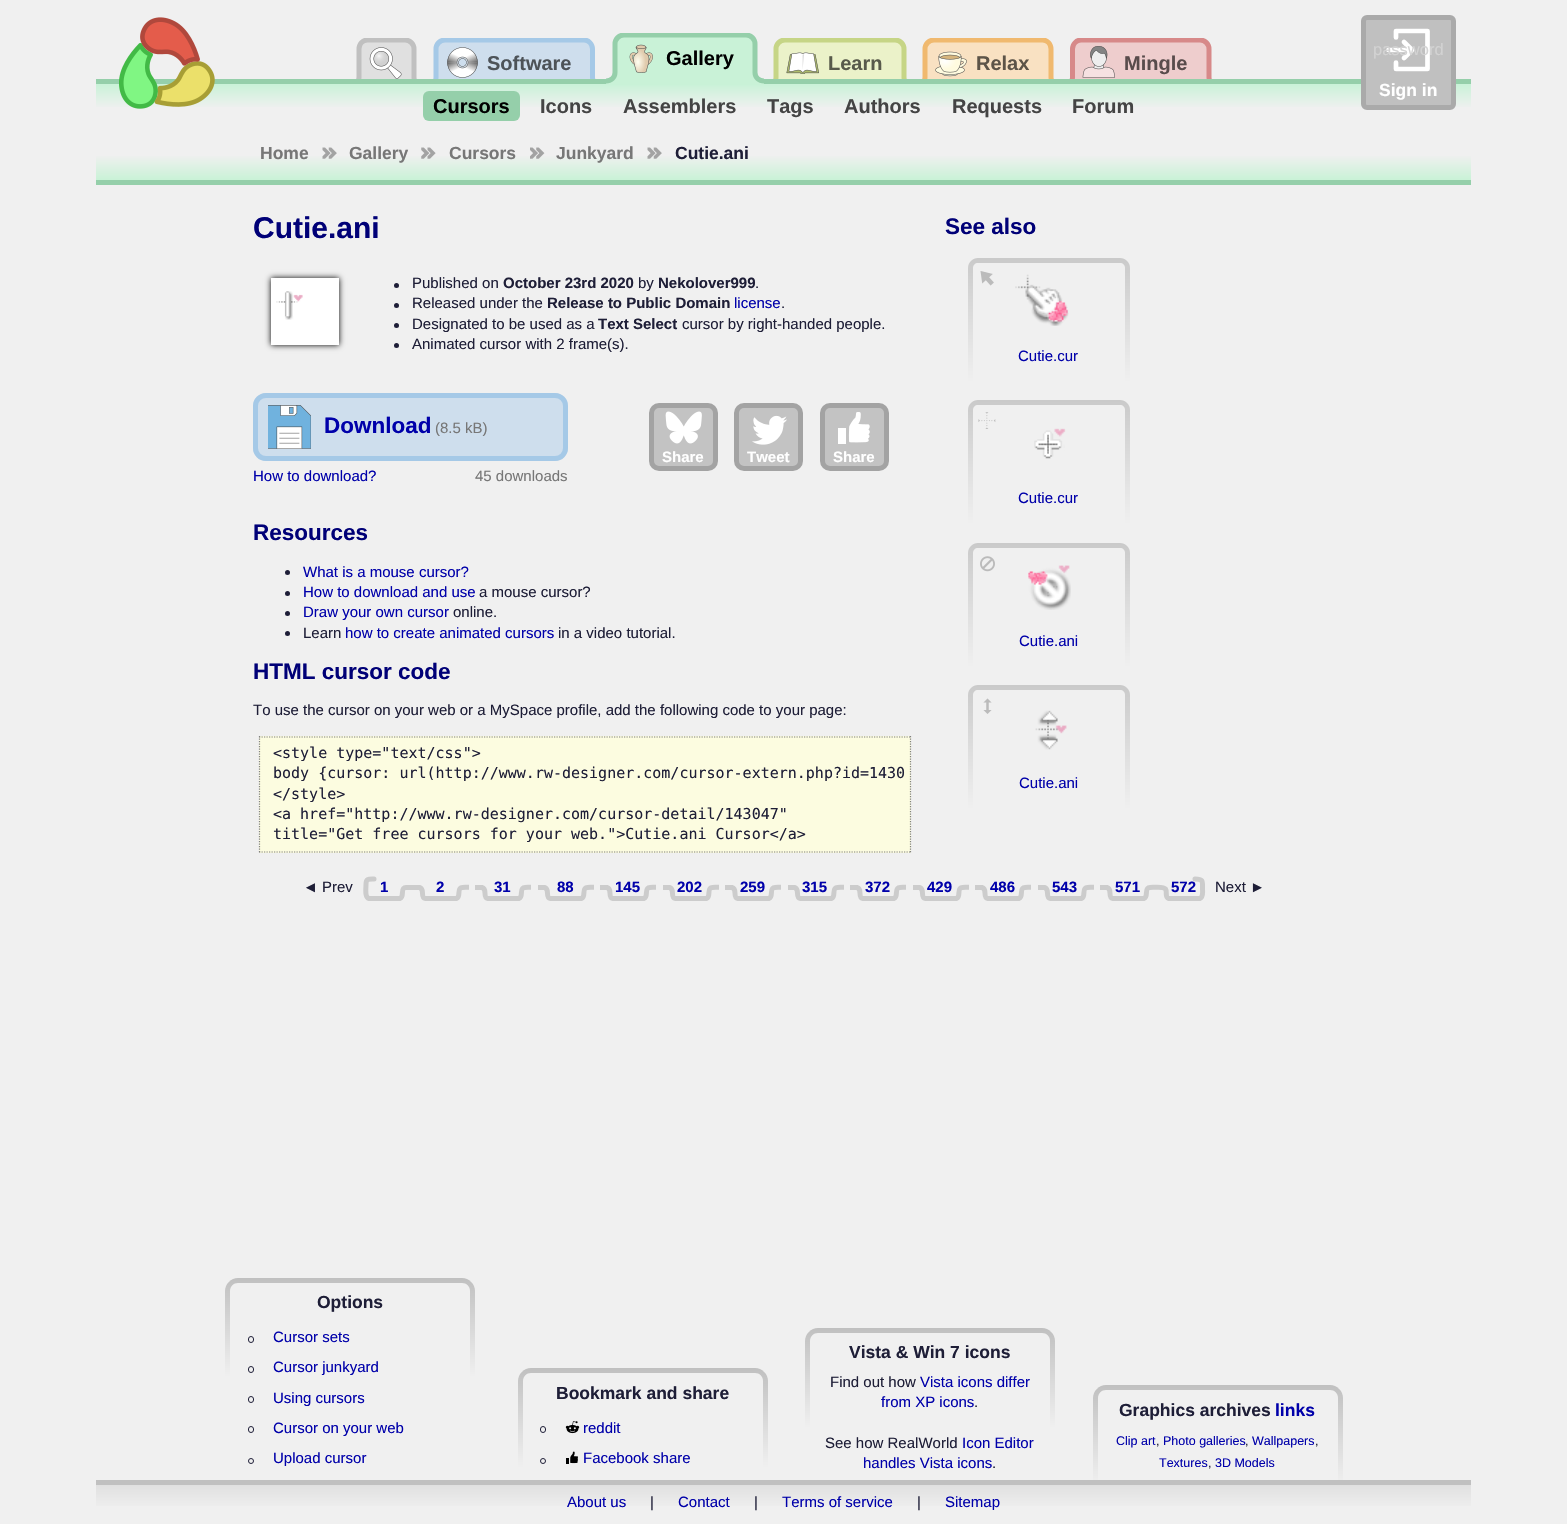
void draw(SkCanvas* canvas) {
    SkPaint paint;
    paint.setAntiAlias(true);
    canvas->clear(0xFFF0F0F0);
    paint.setColor(0xFFE0E0E0);
    canvas->drawPath(SkPathBuilder().moveTo(350, 86).cubicTo(355, 86, 359, 82, 359, 78).lineTo(359, 49).cubicTo(359, 44, 363, 40, 368, 40).lineTo(405, 40).cubicTo(410, 40, 414, 44, 414, 49).lineTo(414, 78).cubicTo(414, 82, 418, 86, 422, 86).lineTo(422, 90).lineTo(350, 90).close().detach(), paint);
    canvas->save();
    canvas->clipRect(SkRect::MakeXYWH(350, 38, 73, 52));
    paint.setStyle(SkPaint::kStroke_Style);
    paint.setStrokeWidth(5);
    paint.setColor(0xFFC0C0C0);
    canvas->drawPath(SkPathBuilder().moveTo(350, 86).cubicTo(355, 86, 359, 82.5f, 359, 77.5f).lineTo(359, 49).cubicTo(359, 44, 362.5f, 40, 367.5f, 40).lineTo(405, 40).cubicTo(410, 40, 414, 44, 414, 49).lineTo(414, 77.5f).cubicTo(414, 82.5f, 417.5f, 86, 422.5f, 86).detach(), paint);
    canvas->restore();
    paint.setStyle(SkPaint::kFill_Style);
    paint.setColor(0xFFCEDEED);
    canvas->drawPath(SkPathBuilder().moveTo(539, 40).lineTo(584, 40).cubicTo(589, 40, 592, 44, 592, 49).lineTo(592, 78).cubicTo(592, 82, 596, 86, 601, 86).lineTo(601, 90).lineTo(539, 90).close().detach(), paint);
    canvas->save();
    canvas->clipRect(SkRect::MakeXYWH(539, 38, 62, 52));
    paint.setStyle(SkPaint::kStroke_Style);
    paint.setColor(0xFFA5C9E7);
    canvas->drawPath(SkPathBuilder().moveTo(539, 40).lineTo(584, 40).cubicTo(588.5f, 40, 592.5f, 44, 592.5f, 49).lineTo(592.5f, 77.5f).cubicTo(592.5f, 82.5f, 596.5f, 86, 601, 86).detach(), paint);
    canvas->restore();
    canvas->save();
    canvas->clipRect(SkRect::MakeXYWH(428, 38, 153, 52));
    paint.setStyle(SkPaint::kFill_Style);
    paint.setColor(0xFFCEDEED);
    canvas->drawPath(SkPathBuilder().moveTo(428, 90).lineTo(428, 86).cubicTo(432, 86, 436, 82, 436, 78).lineTo(436, 49).cubicTo(436, 44, 440, 40, 445, 40).lineTo(678, 40).lineTo(678, 90).close().detach(), paint);
    paint.setStyle(SkPaint::kStroke_Style);
    paint.setColor(0xFFA5C9E7);
    canvas->drawPath(SkPathBuilder().moveTo(427.5f, 86).cubicTo(432.5f, 86, 436, 82.5f, 436, 77.5f).lineTo(436, 49).cubicTo(436, 44, 440, 40, 445, 40).lineTo(677.5f, 40).detach(), paint);
    canvas->restore();
    paint.setStyle(SkPaint::kFill_Style);
    paint.setColor(0xFFEBF2C9);
    canvas->drawPath(SkPathBuilder().moveTo(850, 40).lineTo(895, 40).cubicTo(900, 40, 904, 44, 904, 49).lineTo(904, 78).cubicTo(904, 82, 908, 86, 912, 86).lineTo(912, 90).lineTo(850, 90).close().detach(), paint);
    canvas->save();
    canvas->clipRect(SkRect::MakeXYWH(850, 38, 63, 52));
    paint.setStyle(SkPaint::kStroke_Style);
    paint.setColor(0xFFC6D586);
    canvas->drawPath(SkPathBuilder().moveTo(850, 40).lineTo(895, 40).cubicTo(900, 40, 904, 44, 904, 49).lineTo(904, 77.5f).cubicTo(904, 82.5f, 907.5f, 86, 912.5f, 86).detach(), paint);
    canvas->restore();
    canvas->save();
    canvas->clipRect(SkRect::MakeXYWH(768, 38, 125, 52));
    paint.setStyle(SkPaint::kFill_Style);
    paint.setColor(0xFFEBF2C9);
    canvas->drawPath(SkPathBuilder().moveTo(768, 90).lineTo(768, 86).cubicTo(772, 86, 776, 82, 776, 78).lineTo(776, 49).cubicTo(776, 44, 780, 40, 785, 40).lineTo(1018, 40).lineTo(1018, 90).close().detach(), paint);
    paint.setStyle(SkPaint::kStroke_Style);
    paint.setColor(0xFFC6D586);
    canvas->drawPath(SkPathBuilder().moveTo(767.5f, 86).cubicTo(772.5f, 86, 776, 82.5f, 776, 77.5f).lineTo(776, 49).cubicTo(776, 44, 780, 40, 785, 40).lineTo(1017.5f, 40).detach(), paint);
    canvas->restore();
    paint.setStyle(SkPaint::kFill_Style);
    paint.setColor(0xFFF9E1C2);
    canvas->drawPath(SkPathBuilder().moveTo(998, 40).lineTo(1042, 40).cubicTo(1047, 40, 1051, 44, 1051, 49).lineTo(1051, 78).cubicTo(1051, 82, 1055, 86, 1060, 86).lineTo(1060, 90).lineTo(998, 90).close().detach(), paint);
    canvas->save();
    canvas->clipRect(SkRect::MakeXYWH(998, 38, 62, 52));
    paint.setStyle(SkPaint::kStroke_Style);
    paint.setColor(0xFFF0B96F);
    canvas->drawPath(SkPathBuilder().moveTo(997.5f, 40).lineTo(1042.5f, 40).cubicTo(1047.5f, 40, 1051, 44, 1051, 49).lineTo(1051, 77.5f).cubicTo(1051, 82.5f, 1055, 86, 1060, 86).detach(), paint);
    canvas->restore();
    canvas->save();
    canvas->clipRect(SkRect::MakeXYWH(916, 38, 124, 52));
    paint.setStyle(SkPaint::kFill_Style);
    paint.setColor(0xFFF9E1C2);
    canvas->drawPath(SkPathBuilder().moveTo(916, 90).lineTo(916, 86).cubicTo(921, 86, 925, 82, 925, 78).lineTo(925, 49).cubicTo(925, 44, 929, 40, 934, 40).lineTo(1166, 40).lineTo(1166, 90).close().detach(), paint);
    paint.setStyle(SkPaint::kStroke_Style);
    paint.setColor(0xFFF0B96F);
    canvas->drawPath(SkPathBuilder().moveTo(916, 86).cubicTo(921, 86, 925, 82.5f, 925, 77.5f).lineTo(925, 49).cubicTo(925, 44, 929, 40, 934, 40).lineTo(1166, 40).detach(), paint);
    canvas->restore();
    paint.setStyle(SkPaint::kFill_Style);
    paint.setColor(0xFFEECDCD);
    canvas->drawPath(SkPathBuilder().moveTo(1155, 40).lineTo(1200, 40).cubicTo(1205, 40, 1209, 44, 1209, 49).lineTo(1209, 78).cubicTo(1209, 82, 1213, 86, 1218, 86).lineTo(1218, 90).lineTo(1155, 90).close().detach(), paint);
    canvas->save();
    canvas->clipRect(SkRect::MakeXYWH(1155, 38, 63, 52));
    paint.setStyle(SkPaint::kStroke_Style);
    paint.setColor(0xFFD78989);
    canvas->drawPath(SkPathBuilder().moveTo(1155, 40).lineTo(1200, 40).cubicTo(1205, 40, 1209, 44, 1209, 49).lineTo(1209, 77.5f).cubicTo(1209, 82.5f, 1212.5f, 86, 1217.5f, 86).detach(), paint);
    canvas->restore();
    canvas->save();
    canvas->clipRect(SkRect::MakeXYWH(1064, 38, 134, 52));
    paint.setStyle(SkPaint::kFill_Style);
    paint.setColor(0xFFEECDCD);
    canvas->drawPath(SkPathBuilder().moveTo(1064, 90).lineTo(1064, 86).cubicTo(1069, 86, 1072, 82, 1072, 78).lineTo(1072, 49).cubicTo(1072, 44, 1076, 40, 1081, 40).lineTo(1314, 40).lineTo(1314, 90).close().detach(), paint);
    paint.setStyle(SkPaint::kStroke_Style);
    paint.setColor(0xFFD78989);
    canvas->drawPath(SkPathBuilder().moveTo(1064, 86).cubicTo(1068.5f, 86, 1072.5f, 82.5f, 1072.5f, 77.5f).lineTo(1072.5f, 49).cubicTo(1072.5f, 44, 1076.5f, 40, 1081, 40).lineTo(1314, 40).detach(), paint);
    canvas->restore();
    paint.setStyle(SkPaint::kFill_Style);
    {
        const SkColor colors[] = {0xFF95CFAA, 0xFF95CFAA, 0xFFC9F2D7, 0xFFF0F0F0};
        const float stops[] = {0, 0.08f, 0.08f, 0.48f};
        const SkPoint ends[] = {{784, 79}, {784, 141}};
        paint.setShader(SkGradientShader::MakeLinear(ends, colors, stops, 4, SkTileMode::kClamp));
        paint.setAlpha(255);
    }
    canvas->drawRect(SkRect::MakeXYWH(96, 79, 1375, 28), paint);
    canvas->drawImageRect(SkImages::DeferredFromEncodedData(SkData::MakeFromFileName("img1.png")), SkRect::MakeXYWH(119, 17, 96, 92), SkSamplingOptions());
    canvas->drawImageRect(SkImages::DeferredFromEncodedData(SkData::MakeFromFileName("img2.png")), SkRect::MakeXYWH(369, 47, 33, 32), SkSamplingOptions());
    paint.setShader(nullptr);
    paint.setColor(0xFFC9F2D7);
    canvas->drawPath(SkPathBuilder().moveTo(701, 35).lineTo(746, 35).cubicTo(751, 35, 755, 39, 755, 44).lineTo(755, 72).cubicTo(755, 77, 759, 81, 764, 81).lineTo(764, 85).lineTo(701, 85).close().detach(), paint);
    canvas->save();
    canvas->clipRect(SkRect::MakeXYWH(701, 33, 63, 52));
    paint.setStyle(SkPaint::kStroke_Style);
    paint.setColor(0xFF95CFAA);
    canvas->drawPath(SkPathBuilder().moveTo(701, 35).lineTo(746, 35).cubicTo(751, 35, 755, 39, 755, 44).lineTo(755, 72.5f).cubicTo(755, 77.5f, 759, 81, 764, 81).detach(), paint);
    canvas->restore();
    canvas->save();
    canvas->clipRect(SkRect::MakeXYWH(606, 33, 138, 52));
    paint.setStyle(SkPaint::kFill_Style);
    paint.setColor(0xFFC9F2D7);
    canvas->drawPath(SkPathBuilder().moveTo(606, 85).lineTo(606, 81).cubicTo(611, 81, 615, 77, 615, 72).lineTo(615, 44).cubicTo(615, 39, 619, 35, 624, 35).lineTo(856, 35).lineTo(856, 85).close().detach(), paint);
    paint.setStyle(SkPaint::kStroke_Style);
    paint.setColor(0xFF95CFAA);
    canvas->drawPath(SkPathBuilder().moveTo(606, 81).cubicTo(611, 81, 615, 77.5f, 615, 72.5f).lineTo(615, 44).cubicTo(615, 39, 619, 35, 624, 35).lineTo(856, 35).detach(), paint);
    canvas->restore();
    canvas->drawImageRect(SkImages::DeferredFromEncodedData(SkData::MakeFromFileName("img3.png")), SkRect::MakeXYWH(629, 44, 24, 29), SkSamplingOptions());
    SkFont font1(fontMgr->matchFamilyStyle("Liberation Sans", SkFontStyle::Bold()), 20);
    font1.setSubpixel(true);
    paint.setStyle(SkPaint::kFill_Style);
    paint.setColor(0xFF000000);
    canvas->drawString("Gallery", 666, 65, font1, paint);
    paint.setColor(0xFF95CFAA);
    canvas->drawRoundRect(SkRect::MakeXYWH(423, 91, 97, 30), 6, 6, paint);
    paint.setColor(0xFF000000);
    canvas->drawString("Cursors", 433, 113, font1, paint);
    paint.setColor(0xFF444444);
    canvas->drawString("Icons", 540, 113, font1, paint);
    canvas->drawString("Assemblers", 623, 113, font1, paint);
    canvas->drawString("Tags", 767, 113, font1, paint);
    canvas->drawString("Authors", 844, 113, font1, paint);
    canvas->drawString("Requests", 952, 113, font1, paint);
    canvas->drawString("Forum", 1072, 113, font1, paint);
    canvas->drawImageRect(SkImages::DeferredFromEncodedData(SkData::MakeFromFileName("img4.png")), SkRect::MakeXYWH(447, 47, 31, 31), SkSamplingOptions());
    paint.setColor(0xFF4D5358);
    canvas->drawString("Software", 487, 70, font1, paint);
    canvas->drawImageRect(SkImages::DeferredFromEncodedData(SkData::MakeFromFileName("img5.png")), SkRect::MakeXYWH(786, 52, 33, 22), SkSamplingOptions());
    paint.setColor(0xFF585A4B);
    canvas->drawString("Learn", 828, 70, font1, paint);
    canvas->drawImageRect(SkImages::DeferredFromEncodedData(SkData::MakeFromFileName("img6.png")), SkRect::MakeXYWH(935, 51, 32, 26), SkSamplingOptions());
    paint.setColor(0xFF5D5448);
    canvas->drawString("Relax", 976, 70, font1, paint);
    canvas->drawImageRect(SkImages::DeferredFromEncodedData(SkData::MakeFromFileName("img7.png")), SkRect::MakeXYWH(1082, 46, 33, 32), SkSamplingOptions());
    paint.setColor(0xFF594C4C);
    canvas->drawString("Mingle", 1124, 70, font1, paint);
    paint.setColor(0xFFC0C0C0);
    canvas->drawRoundRect(SkRect::MakeXYWH(1363.5f, 17.5f, 90, 90), 3.5f, 3.5f, paint);
    paint.setStyle(SkPaint::kStroke_Style);
    paint.setColor(0xFFAAAAAA);
    canvas->drawRoundRect(SkRect::MakeXYWH(1363.5f, 17.5f, 90, 90), 3.5f, 3.5f, paint);
    paint.setStrokeWidth(4.7f);
    paint.setStrokeCap(SkPaint::kRound_Cap);
    paint.setStrokeJoin(SkPaint::kRound_Join);
    paint.setColor(0xFFFFFFFF);
    canvas->drawPath(SkPathBuilder().moveTo(1396, 37.5f).lineTo(1396, 31).lineTo(1427.5f, 31).lineTo(1427.5f, 69).lineTo(1396, 69).lineTo(1396, 62.5f).moveTo(1388.5f, 50).lineTo(1412, 50).moveTo(1404, 42).lineTo(1412, 50).lineTo(1404, 58).detach(), paint);
    SkFont font2(fontMgr->matchFamilyStyle("Liberation Sans", SkFontStyle::Normal()), 16.5f);
    font2.setSubpixel(true);
    paint.setStyle(SkPaint::kFill_Style);
    paint.setColor(0xFFD3D3D3);
    canvas->drawString("password", 1373, 55, font2, paint);
    SkFont font3(fontMgr->matchFamilyStyle("Liberation Sans", SkFontStyle::Bold()), 17.5f);
    font3.setSubpixel(true);
    paint.setColor(0xFFFFFFFF);
    canvas->drawString("Sign in", 1379, 96, font3, paint);
    {
        const SkColor colors[] = {0xFFC9F2D7, 0xFFF0F0F0};
        const float stops[] = {0, 0.28f};
        const SkPoint ends[] = {{784, 180}, {784, 90}};
        paint.setShader(SkGradientShader::MakeLinear(ends, colors, stops, 2, SkTileMode::kClamp));
        paint.setAlpha(255);
    }
    canvas->drawRect(SkRect::MakeXYWH(96, 156, 1375, 24), paint);
    paint.setShader(nullptr);
    paint.setColor(0xFF95CFAA);
    canvas->drawRect(SkRect::MakeXYWH(96, 180, 1375, 5), paint);
    paint.setColor(0xFF777777);
    canvas->drawString("Home", 260, 159, font3, paint);
    canvas->drawImageRect(SkImages::DeferredFromEncodedData(SkData::MakeFromFileName("img8.png")), SkRect::MakeXYWH(322, 147, 15, 12), SkSamplingOptions());
    canvas->drawString("Gallery", 349, 159, font3, paint);
    canvas->drawImageRect(SkImages::DeferredFromEncodedData(SkData::MakeFromFileName("img9.png")), SkRect::MakeXYWH(421, 147, 15, 12), SkSamplingOptions());
    canvas->drawString("Cursors", 449, 159, font3, paint);
    canvas->drawImageRect(SkImages::DeferredFromEncodedData(SkData::MakeFromFileName("img10.png")), SkRect::MakeXYWH(530, 147, 15, 12), SkSamplingOptions());
    canvas->drawString("Junkyard", 556, 159, font3, paint);
    canvas->drawImageRect(SkImages::DeferredFromEncodedData(SkData::MakeFromFileName("img8.png")), SkRect::MakeXYWH(647, 147, 15, 12), SkSamplingOptions());
    paint.setColor(0xFF1E1E37);
    canvas->drawString("Cutie.ani", 675, 159, font3, paint);
    SkFont font4(fontMgr->matchFamilyStyle("Liberation Sans", SkFontStyle::Bold()), 30);
    font4.setSubpixel(true);
    paint.setColor(0xFF000077);
    canvas->drawString("Cutie.ani", 253, 238, font4, paint);
    paint.setColor(0xFF000000);
    paint.setMaskFilter(SkMaskFilter::MakeBlur(kNormal_SkBlurStyle, 3));
    canvas->drawRect(SkRect::MakeXYWH(271, 278, 68, 67), paint);
    paint.setMaskFilter(nullptr);
    paint.setColor(0xFFFFFFFF);
    canvas->drawRect(SkRect::MakeXYWH(271, 278, 68, 67), paint);
    canvas->drawImageRect(SkImages::DeferredFromEncodedData(SkData::MakeFromFileName("img11.png")), SkRect::MakeXYWH(276, 291, 27, 29), SkSamplingOptions());
    paint.setColor(0xFF1E1E37);
    canvas->drawCircle(396.5f, 285.5f, 2.5f, paint);
    SkFont font5(fontMgr->matchFamilyStyle("Liberation Sans", SkFontStyle::Normal()), 15);
    font5.setSubpixel(true);
    canvas->drawString("Published on", 412, 288, font5, paint);
    SkFont font6(fontMgr->matchFamilyStyle("Liberation Sans", SkFontStyle::Bold()), 15);
    font6.setSubpixel(true);
    canvas->drawString("October 23rd 2020", 503, 288, font6, paint);
    canvas->drawString("by", 638, 288, font5, paint);
    canvas->drawString("Nekolover999", 658, 288, font6, paint);
    canvas->drawString(".", 755, 288, font5, paint);
    canvas->drawCircle(396.5f, 305.5f, 2.5f, paint);
    canvas->drawString("Released under the", 412, 308, font5, paint);
    canvas->drawString("Release to Public Domain", 547, 308, font6, paint);
    paint.setColor(0xFF0000AA);
    canvas->drawString("license", 734, 308, font5, paint);
    paint.setColor(0xFF1E1E37);
    canvas->drawString(".", 781, 308, font5, paint);
    canvas->drawCircle(396.5f, 325.5f, 2.5f, paint);
    canvas->drawString("Designated to be used as a", 412, 329, font5, paint);
    canvas->drawString("Text Select", 598, 329, font6, paint);
    canvas->drawString("cursor by right-handed people.", 682, 329, font5, paint);
    canvas->drawCircle(396.5f, 345.5f, 2.5f, paint);
    canvas->drawString("Animated cursor with 2 frame(s).", 412, 349, font5, paint);
    paint.setColor(0xFFCEDEED);
    canvas->drawRoundRect(SkRect::MakeXYWH(253, 393, 315, 68), 13, 13, paint);
    canvas->drawImageRect(SkImages::DeferredFromEncodedData(SkData::MakeFromFileName("img12.png")), SkRect::MakeXYWH(268, 405, 43, 44), SkSamplingOptions());
    paint.setStyle(SkPaint::kStroke_Style);
    paint.setStrokeWidth(5);
    paint.setStrokeCap(SkPaint::kButt_Cap);
    paint.setStrokeJoin(SkPaint::kMiter_Join);
    paint.setColor(0xFFA5C9E7);
    canvas->drawRoundRect(SkRect::MakeXYWH(255.5f, 395.5f, 310, 63), 10.5f, 10.5f, paint);
    SkFont font7(fontMgr->matchFamilyStyle("Liberation Sans", SkFontStyle::Bold()), 22.5f);
    font7.setSubpixel(true);
    paint.setStyle(SkPaint::kFill_Style);
    paint.setColor(0xFF0000AA);
    canvas->drawString("Download", 324, 433, font7, paint);
    paint.setColor(0xFF777777);
    canvas->drawString("(8.5 kB)", 435, 433, font5, paint);
    paint.setColor(0xFF0000AA);
    canvas->drawString("How to download?", 253, 481, font5, paint);
    paint.setColor(0xFF777777);
    canvas->drawString("45 downloads", 475, 481, font5, paint);
    paint.setColor(0xFFC3C3C3);
    canvas->drawRoundRect(SkRect::MakeXYWH(651.5f, 405.5f, 64, 63), 7.5f, 7.5f, paint);
    paint.setStyle(SkPaint::kStroke_Style);
    paint.setColor(0xFFA3A3A3);
    canvas->drawRoundRect(SkRect::MakeXYWH(651.5f, 405.5f, 64, 63), 7.5f, 7.5f, paint);
    canvas->drawImageRect(SkImages::DeferredFromEncodedData(SkData::MakeFromFileName("img13.png")), SkRect::MakeXYWH(665, 411, 37, 33), SkSamplingOptions());
    paint.setStyle(SkPaint::kFill_Style);
    paint.setColor(0xFFFFFFFF);
    canvas->drawString("Share", 662, 462, font6, paint);
    paint.setColor(0xFFC3C3C3);
    canvas->drawRoundRect(SkRect::MakeXYWH(736.5f, 405.5f, 64, 63), 7.5f, 7.5f, paint);
    paint.setStyle(SkPaint::kStroke_Style);
    paint.setColor(0xFFA3A3A3);
    canvas->drawRoundRect(SkRect::MakeXYWH(736.5f, 405.5f, 64, 63), 7.5f, 7.5f, paint);
    canvas->drawImageRect(SkImages::DeferredFromEncodedData(SkData::MakeFromFileName("img14.png")), SkRect::MakeXYWH(752, 415, 35, 30), SkSamplingOptions());
    paint.setStyle(SkPaint::kFill_Style);
    paint.setColor(0xFFFFFFFF);
    canvas->drawString("Tweet", 747, 462, font6, paint);
    paint.setColor(0xFFC3C3C3);
    canvas->drawRoundRect(SkRect::MakeXYWH(822.5f, 405.5f, 64, 63), 7.5f, 7.5f, paint);
    paint.setStyle(SkPaint::kStroke_Style);
    paint.setColor(0xFFA3A3A3);
    canvas->drawRoundRect(SkRect::MakeXYWH(822.5f, 405.5f, 64, 63), 7.5f, 7.5f, paint);
    canvas->drawImageRect(SkImages::DeferredFromEncodedData(SkData::MakeFromFileName("img15.png")), SkRect::MakeXYWH(838, 412, 32, 32), SkSamplingOptions());
    paint.setStyle(SkPaint::kFill_Style);
    paint.setColor(0xFFFFFFFF);
    canvas->drawString("Share", 833, 462, font6, paint);
    paint.setColor(0xFF000077);
    canvas->drawString("Resources", 253, 540, font7, paint);
    paint.setColor(0xFF1E1E37);
    canvas->drawCircle(287.5f, 572.5f, 2.5f, paint);
    paint.setColor(0xFF0000AA);
    canvas->drawString("What is a mouse cursor?", 303, 577, font5, paint);
    paint.setColor(0xFF1E1E37);
    canvas->drawCircle(287.5f, 593.5f, 2.5f, paint);
    paint.setColor(0xFF0000AA);
    canvas->drawString("How to download and use", 303, 597, font5, paint);
    paint.setColor(0xFF1E1E37);
    canvas->drawString("a mouse cursor?", 479, 597, font5, paint);
    canvas->drawCircle(287.5f, 613.5f, 2.5f, paint);
    paint.setColor(0xFF0000AA);
    canvas->drawString("Draw your own cursor", 303, 617, font5, paint);
    paint.setColor(0xFF1E1E37);
    canvas->drawString("online.", 453, 617, font5, paint);
    canvas->drawCircle(287.5f, 633.5f, 2.5f, paint);
    canvas->drawString("Learn", 303, 638, font5, paint);
    paint.setColor(0xFF0000AA);
    canvas->drawString("how to create animated cursors", 345, 638, font5, paint);
    paint.setColor(0xFF1E1E37);
    canvas->drawString("in a video tutorial.", 558, 638, font5, paint);
    paint.setColor(0xFF000077);
    canvas->drawString("HTML cursor code", 253, 679, font7, paint);
    paint.setColor(0xFF1E1E37);
    canvas->drawString("To use the cursor on your web or a MySpace profile, add the following code to your page:", 253, 715, font5, paint);
    paint.setColor(0xFFFCFCE0);
    canvas->drawRect(SkRect::MakeXYWH(259, 736, 652, 117), paint);
    paint.setStyle(SkPaint::kStroke_Style);
    paint.setStrokeWidth(1.2f);
    paint.setColor(0xFF808080);
    paint.setPathEffect(SkDashPathEffect::Make({{1.25f, 1.25f}}, 0));
    canvas->drawPath(SkPathBuilder().moveTo(259, 737).lineTo(911, 737).detach(), paint);
    paint.setPathEffect(nullptr);
    paint.setPathEffect(SkDashPathEffect::Make({{1.25f, 1.25f}}, 0));
    canvas->drawPath(SkPathBuilder().moveTo(910.5f, 736).lineTo(910.5f, 852.5f).detach(), paint);
    paint.setPathEffect(nullptr);
    paint.setPathEffect(SkDashPathEffect::Make({{1.25f, 1.25f}}, 0));
    canvas->drawPath(SkPathBuilder().moveTo(259, 852).lineTo(911, 852).detach(), paint);
    paint.setPathEffect(nullptr);
    paint.setPathEffect(SkDashPathEffect::Make({{1.25f, 1.25f}}, 0));
    canvas->drawPath(SkPathBuilder().moveTo(259.5f, 736).lineTo(259.5f, 852.5f).detach(), paint);
    paint.setPathEffect(nullptr);
    SkFont font8(fontMgr->matchFamilyStyle("DejaVu Sans Mono", SkFontStyle::Normal()), 15);
    font8.setSubpixel(true);
    paint.setStyle(SkPaint::kFill_Style);
    paint.setColor(0xFF1E1E37);
    canvas->drawString("<style type=\"text/css\">", 273, 758, font8, paint);
    canvas->drawString("body {cursor: url(http://www.rw-designer.com/cursor-extern.php?id=1430", 273, 778, font8, paint);
    canvas->drawString("</style>", 273, 799, font8, paint);
    canvas->drawString("<a href=\"http://www.rw-designer.com/cursor-detail/143047\"", 273, 819, font8, paint);
    canvas->drawString("title=\"Get free cursors for your web.\">Cutie.ani Cursor</a>", 273, 839, font8, paint);
    paint.setColor(0xFF000077);
    canvas->drawString("See also", 945, 234, font7, paint);
    {
        const SkColor colors[] = {0xFFCACACA, 0xFFF0F0F0};
        const float stops[] = {0, 1};
        const SkPoint ends[] = {{1049, 258}, {1049, 383}};
        paint.setShader(SkGradientShader::MakeLinear(ends, colors, stops, 2, SkTileMode::kClamp));
        paint.setAlpha(255);
    }
    canvas->drawPath(SkPathBuilder().moveTo(978, 258).lineTo(1120, 258).cubicTo(1125.5f, 258, 1130, 262.5f, 1130, 268).lineTo(1130, 383).lineTo(968, 383).lineTo(968, 268).cubicTo(968, 262.5f, 972.5f, 258, 978, 258).close().detach(), paint);
    paint.setShader(nullptr);
    paint.setColor(0xFFF0F0F0);
    canvas->drawPath(SkPathBuilder().moveTo(978, 263).lineTo(1120, 263).cubicTo(1123, 263, 1125, 265, 1125, 268).lineTo(1125, 383).lineTo(973, 383).lineTo(973, 268).cubicTo(973, 265, 975, 263, 978, 263).close().detach(), paint);
    canvas->drawImageRect(SkImages::DeferredFromEncodedData(SkData::MakeFromFileName("img16.png")), SkRect::MakeXYWH(980, 271, 14, 15), SkSamplingOptions());
    canvas->drawImageRect(SkImages::DeferredFromEncodedData(SkData::MakeFromFileName("img17.png")), SkRect::MakeXYWH(1015, 274, 54, 52), SkSamplingOptions());
    paint.setColor(0xFF0000AA);
    canvas->drawString("Cutie.cur", 1018, 361, font5, paint);
    {
        const SkColor colors[] = {0xFFCACACA, 0xFFF0F0F0};
        const float stops[] = {0, 1};
        const SkPoint ends[] = {{1049, 400}, {1049, 525}};
        paint.setShader(SkGradientShader::MakeLinear(ends, colors, stops, 2, SkTileMode::kClamp));
        paint.setAlpha(255);
    }
    canvas->drawPath(SkPathBuilder().moveTo(978, 400).lineTo(1120, 400).cubicTo(1125.5f, 400, 1130, 404.5f, 1130, 410).lineTo(1130, 525).lineTo(968, 525).lineTo(968, 410).cubicTo(968, 404.5f, 972.5f, 400, 978, 400).close().detach(), paint);
    paint.setShader(nullptr);
    paint.setColor(0xFFF0F0F0);
    canvas->drawPath(SkPathBuilder().moveTo(978, 405).lineTo(1120, 405).cubicTo(1123, 405, 1125, 407, 1125, 410).lineTo(1125, 525).lineTo(973, 525).lineTo(973, 410).cubicTo(973, 407, 975, 405, 978, 405).close().detach(), paint);
    canvas->drawImageRect(SkImages::DeferredFromEncodedData(SkData::MakeFromFileName("img18.png")), SkRect::MakeXYWH(978, 412, 18, 17), SkSamplingOptions());
    canvas->drawImageRect(SkImages::DeferredFromEncodedData(SkData::MakeFromFileName("img19.png")), SkRect::MakeXYWH(1034, 428, 32, 31), SkSamplingOptions());
    paint.setColor(0xFF0000AA);
    canvas->drawString("Cutie.cur", 1018, 503, font5, paint);
    {
        const SkColor colors[] = {0xFFCACACA, 0xFFF0F0F0};
        const float stops[] = {0, 1};
        const SkPoint ends[] = {{1049, 543}, {1049, 668}};
        paint.setShader(SkGradientShader::MakeLinear(ends, colors, stops, 2, SkTileMode::kClamp));
        paint.setAlpha(255);
    }
    canvas->drawPath(SkPathBuilder().moveTo(978, 543).lineTo(1120, 543).cubicTo(1125.5f, 543, 1130, 547.5f, 1130, 553).lineTo(1130, 668).lineTo(968, 668).lineTo(968, 553).cubicTo(968, 547.5f, 972.5f, 543, 978, 543).close().detach(), paint);
    paint.setShader(nullptr);
    paint.setColor(0xFFF0F0F0);
    canvas->drawPath(SkPathBuilder().moveTo(978, 548).lineTo(1120, 548).cubicTo(1123, 548, 1125, 550, 1125, 553).lineTo(1125, 668).lineTo(973, 668).lineTo(973, 553).cubicTo(973, 550, 975, 548, 978, 548).close().detach(), paint);
    canvas->drawImageRect(SkImages::DeferredFromEncodedData(SkData::MakeFromFileName("img20.png")), SkRect::MakeXYWH(980, 556, 15, 16), SkSamplingOptions());
    canvas->drawImageRect(SkImages::DeferredFromEncodedData(SkData::MakeFromFileName("img21.png")), SkRect::MakeXYWH(1028, 565, 43, 45), SkSamplingOptions());
    paint.setColor(0xFF0000AA);
    canvas->drawString("Cutie.ani", 1019, 646, font5, paint);
    {
        const SkColor colors[] = {0xFFCACACA, 0xFFF0F0F0};
        const float stops[] = {0, 1};
        const SkPoint ends[] = {{1049, 685}, {1049, 810}};
        paint.setShader(SkGradientShader::MakeLinear(ends, colors, stops, 2, SkTileMode::kClamp));
        paint.setAlpha(255);
    }
    canvas->drawPath(SkPathBuilder().moveTo(978, 685).lineTo(1120, 685).cubicTo(1125.5f, 685, 1130, 689.5f, 1130, 695).lineTo(1130, 810).lineTo(968, 810).lineTo(968, 695).cubicTo(968, 689.5f, 972.5f, 685, 978, 685).close().detach(), paint);
    paint.setShader(nullptr);
    paint.setColor(0xFFF0F0F0);
    canvas->drawPath(SkPathBuilder().moveTo(978, 690).lineTo(1120, 690).cubicTo(1123, 690, 1125, 692, 1125, 695).lineTo(1125, 810).lineTo(973, 810).lineTo(973, 695).cubicTo(973, 692, 975, 690, 978, 690).close().detach(), paint);
    canvas->drawImageRect(SkImages::DeferredFromEncodedData(SkData::MakeFromFileName("img22.png")), SkRect::MakeXYWH(983, 698, 9, 16), SkSamplingOptions());
    canvas->drawImageRect(SkImages::DeferredFromEncodedData(SkData::MakeFromFileName("img23.png")), SkRect::MakeXYWH(1035, 710, 32, 40), SkSamplingOptions());
    paint.setColor(0xFF0000AA);
    canvas->drawString("Cutie.ani", 1019, 788, font5, paint);
    paint.setColor(0xFF1E1E37);
    canvas->drawString("◄ Prev", 303, 892, font5, paint);
    canvas->save();
    canvas->clipRect(SkRect::MakeXYWH(356, 876, 57, 25));
    paint.setStyle(SkPaint::kStroke_Style);
    paint.setStrokeWidth(5);
    paint.setStrokeCap(SkPaint::kRound_Cap);
    paint.setColor(0xFFCCCCCC);
    canvas->drawPath(SkPathBuilder().moveTo(374, 879).cubicTo(368.5f, 879, 366, 878.5f, 366, 884.5f).cubicTo(366, 888, 364.5f, 897.5f, 369, 898.5f).lineTo(400, 898.5f).cubicTo(405, 896.5f, 399.5f, 887.5f, 406, 887.5f).lineTo(419.5f, 887.5f).cubicTo(425.5f, 889, 419.5f, 897.5f, 425.5f, 898.5f).lineTo(456.5f, 898.5f).cubicTo(461.5f, 896.5f, 456, 887.5f, 462.5f, 887.5f).cubicTo(466, 887.5f, 476, 886, 478, 889).cubicTo(480, 892, 477, 897, 481, 898.5f).lineTo(512.5f, 898.5f).cubicTo(516, 897, 515, 891.5f, 515, 889).cubicTo(515, 881, 516, 879, 507.5f, 879).detach(), paint);
    canvas->restore();
    paint.setStyle(SkPaint::kFill_Style);
    paint.setColor(0xFF0000AA);
    canvas->drawString("1", 380, 892, font6, paint);
    canvas->save();
    canvas->clipRect(SkRect::MakeXYWH(413, 876, 56, 25));
    paint.setStyle(SkPaint::kStroke_Style);
    paint.setColor(0xFFCCCCCC);
    canvas->drawPath(SkPathBuilder().moveTo(374, 879).cubicTo(368.5f, 879, 366, 878.5f, 366, 884.5f).cubicTo(366, 888, 364.5f, 897.5f, 369, 898.5f).lineTo(400, 898.5f).cubicTo(405, 896.5f, 399.5f, 887.5f, 406, 887.5f).lineTo(419.5f, 887.5f).cubicTo(425.5f, 889, 419.5f, 897.5f, 425.5f, 898.5f).lineTo(456.5f, 898.5f).cubicTo(461.5f, 896.5f, 456, 887.5f, 462.5f, 887.5f).cubicTo(466, 887.5f, 476, 886, 478, 889).cubicTo(480, 892, 477, 897, 481, 898.5f).lineTo(512.5f, 898.5f).cubicTo(516, 897, 515, 891.5f, 515, 889).cubicTo(515, 881, 516, 879, 507.5f, 879).detach(), paint);
    canvas->restore();
    paint.setStyle(SkPaint::kFill_Style);
    paint.setColor(0xFF0000AA);
    canvas->drawString("2", 436, 892, font6, paint);
    canvas->save();
    canvas->clipRect(SkRect::MakeXYWH(475, 876, 56, 25));
    paint.setStyle(SkPaint::kStroke_Style);
    paint.setColor(0xFFCCCCCC);
    canvas->drawPath(SkPathBuilder().moveTo(436, 879).cubicTo(431, 879, 429, 878.5f, 429, 884.5f).cubicTo(429, 888, 427, 897.5f, 431.5f, 898.5f).lineTo(462.5f, 898.5f).cubicTo(467.5f, 896.5f, 462, 887.5f, 469, 887.5f).lineTo(482, 887.5f).cubicTo(488, 889, 482, 897.5f, 488, 898.5f).lineTo(519, 898.5f).cubicTo(524, 896.5f, 518.5f, 887.5f, 525, 887.5f).cubicTo(528.5f, 887.5f, 538.5f, 886, 540.5f, 889).cubicTo(542.5f, 892, 539.5f, 897, 543.5f, 898.5f).lineTo(575, 898.5f).cubicTo(578.5f, 897, 577.5f, 891.5f, 577.5f, 889).cubicTo(577.5f, 881, 578.5f, 879, 570, 879).detach(), paint);
    canvas->restore();
    paint.setStyle(SkPaint::kFill_Style);
    paint.setColor(0xFF0000AA);
    canvas->drawString("31", 494, 892, font6, paint);
    canvas->save();
    canvas->clipRect(SkRect::MakeXYWH(538, 876, 56, 25));
    paint.setStyle(SkPaint::kStroke_Style);
    paint.setColor(0xFFCCCCCC);
    canvas->drawPath(SkPathBuilder().moveTo(499, 879).cubicTo(493.5f, 879, 491, 878.5f, 491, 884.5f).cubicTo(491, 888, 489.5f, 897.5f, 494, 898.5f).lineTo(525, 898.5f).cubicTo(530, 896.5f, 524.5f, 887.5f, 531, 887.5f).lineTo(544.5f, 887.5f).cubicTo(550.5f, 889, 544.5f, 897.5f, 550.5f, 898.5f).lineTo(581.5f, 898.5f).cubicTo(586.5f, 896.5f, 581, 887.5f, 587.5f, 887.5f).cubicTo(591, 887.5f, 601, 886, 603, 889).cubicTo(605, 892, 602, 897, 606, 898.5f).lineTo(637.5f, 898.5f).cubicTo(641, 897, 640, 891.5f, 640, 889).cubicTo(640, 881, 641, 879, 632.5f, 879).detach(), paint);
    canvas->restore();
    paint.setStyle(SkPaint::kFill_Style);
    paint.setColor(0xFF0000AA);
    canvas->drawString("88", 557, 892, font6, paint);
    canvas->save();
    canvas->clipRect(SkRect::MakeXYWH(600, 876, 56, 25));
    paint.setStyle(SkPaint::kStroke_Style);
    paint.setColor(0xFFCCCCCC);
    canvas->drawPath(SkPathBuilder().moveTo(561, 879).cubicTo(556, 879, 554, 878.5f, 554, 884.5f).cubicTo(554, 888, 552, 897.5f, 556.5f, 898.5f).lineTo(587.5f, 898.5f).cubicTo(592.5f, 896.5f, 587, 887.5f, 594, 887.5f).lineTo(607, 887.5f).cubicTo(613, 889, 607, 897.5f, 613, 898.5f).lineTo(644, 898.5f).cubicTo(649, 896.5f, 643.5f, 887.5f, 650, 887.5f).cubicTo(653.5f, 887.5f, 663.5f, 886, 665.5f, 889).cubicTo(667.5f, 892, 664.5f, 897, 668.5f, 898.5f).lineTo(700, 898.5f).cubicTo(703.5f, 897, 702.5f, 891.5f, 702.5f, 889).cubicTo(702.5f, 881, 703.5f, 879, 695, 879).detach(), paint);
    canvas->restore();
    paint.setStyle(SkPaint::kFill_Style);
    paint.setColor(0xFF0000AA);
    canvas->drawString("145", 615, 892, font6, paint);
    canvas->save();
    canvas->clipRect(SkRect::MakeXYWH(663, 876, 56, 25));
    paint.setStyle(SkPaint::kStroke_Style);
    paint.setColor(0xFFCCCCCC);
    canvas->drawPath(SkPathBuilder().moveTo(624, 879).cubicTo(618.5f, 879, 616, 878.5f, 616, 884.5f).cubicTo(616, 888, 614.5f, 897.5f, 619, 898.5f).lineTo(650, 898.5f).cubicTo(655, 896.5f, 649.5f, 887.5f, 656, 887.5f).lineTo(669.5f, 887.5f).cubicTo(675.5f, 889, 669.5f, 897.5f, 675.5f, 898.5f).lineTo(706.5f, 898.5f).cubicTo(711.5f, 896.5f, 706, 887.5f, 712.5f, 887.5f).cubicTo(716, 887.5f, 726, 886, 728, 889).cubicTo(730, 892, 727, 897, 731, 898.5f).lineTo(762.5f, 898.5f).cubicTo(766, 897, 765, 891.5f, 765, 889).cubicTo(765, 881, 766, 879, 757.5f, 879).detach(), paint);
    canvas->restore();
    paint.setStyle(SkPaint::kFill_Style);
    paint.setColor(0xFF0000AA);
    canvas->drawString("202", 677, 892, font6, paint);
    canvas->save();
    canvas->clipRect(SkRect::MakeXYWH(725, 876, 56, 25));
    paint.setStyle(SkPaint::kStroke_Style);
    paint.setColor(0xFFCCCCCC);
    canvas->drawPath(SkPathBuilder().moveTo(686, 879).cubicTo(681, 879, 679, 878.5f, 679, 884.5f).cubicTo(679, 888, 677, 897.5f, 681.5f, 898.5f).lineTo(712.5f, 898.5f).cubicTo(717.5f, 896.5f, 712, 887.5f, 719, 887.5f).lineTo(732, 887.5f).cubicTo(738, 889, 732, 897.5f, 738, 898.5f).lineTo(769, 898.5f).cubicTo(774, 896.5f, 768.5f, 887.5f, 775, 887.5f).cubicTo(778.5f, 887.5f, 788.5f, 886, 790.5f, 889).cubicTo(792.5f, 892, 789.5f, 897, 793.5f, 898.5f).lineTo(825, 898.5f).cubicTo(828.5f, 897, 827.5f, 891.5f, 827.5f, 889).cubicTo(827.5f, 881, 828.5f, 879, 820, 879).detach(), paint);
    canvas->restore();
    paint.setStyle(SkPaint::kFill_Style);
    paint.setColor(0xFF0000AA);
    canvas->drawString("259", 740, 892, font6, paint);
    canvas->save();
    canvas->clipRect(SkRect::MakeXYWH(788, 876, 56, 25));
    paint.setStyle(SkPaint::kStroke_Style);
    paint.setColor(0xFFCCCCCC);
    canvas->drawPath(SkPathBuilder().moveTo(749, 879).cubicTo(743.5f, 879, 741, 878.5f, 741, 884.5f).cubicTo(741, 888, 739.5f, 897.5f, 744, 898.5f).lineTo(775, 898.5f).cubicTo(780, 896.5f, 774.5f, 887.5f, 781, 887.5f).lineTo(794.5f, 887.5f).cubicTo(800.5f, 889, 794.5f, 897.5f, 800.5f, 898.5f).lineTo(831.5f, 898.5f).cubicTo(836.5f, 896.5f, 831, 887.5f, 837.5f, 887.5f).cubicTo(841, 887.5f, 851, 886, 853, 889).cubicTo(855, 892, 852, 897, 856, 898.5f).lineTo(887.5f, 898.5f).cubicTo(891, 897, 890, 891.5f, 890, 889).cubicTo(890, 881, 891, 879, 882.5f, 879).detach(), paint);
    canvas->restore();
    paint.setStyle(SkPaint::kFill_Style);
    paint.setColor(0xFF0000AA);
    canvas->drawString("315", 802, 892, font6, paint);
    canvas->save();
    canvas->clipRect(SkRect::MakeXYWH(850, 876, 56, 25));
    paint.setStyle(SkPaint::kStroke_Style);
    paint.setColor(0xFFCCCCCC);
    canvas->drawPath(SkPathBuilder().moveTo(811, 879).cubicTo(806, 879, 804, 878.5f, 804, 884.5f).cubicTo(804, 888, 802, 897.5f, 806.5f, 898.5f).lineTo(837.5f, 898.5f).cubicTo(842.5f, 896.5f, 837, 887.5f, 844, 887.5f).lineTo(857, 887.5f).cubicTo(863, 889, 857, 897.5f, 863, 898.5f).lineTo(894, 898.5f).cubicTo(899, 896.5f, 893.5f, 887.5f, 900, 887.5f).cubicTo(903.5f, 887.5f, 913.5f, 886, 915.5f, 889).cubicTo(917.5f, 892, 914.5f, 897, 918.5f, 898.5f).lineTo(950, 898.5f).cubicTo(953.5f, 897, 952.5f, 891.5f, 952.5f, 889).cubicTo(952.5f, 881, 953.5f, 879, 945, 879).detach(), paint);
    canvas->restore();
    paint.setStyle(SkPaint::kFill_Style);
    paint.setColor(0xFF0000AA);
    canvas->drawString("372", 865, 892, font6, paint);
    canvas->save();
    canvas->clipRect(SkRect::MakeXYWH(913, 876, 56, 25));
    paint.setStyle(SkPaint::kStroke_Style);
    paint.setColor(0xFFCCCCCC);
    canvas->drawPath(SkPathBuilder().moveTo(874, 879).cubicTo(868.5f, 879, 866, 878.5f, 866, 884.5f).cubicTo(866, 888, 864.5f, 897.5f, 869, 898.5f).lineTo(900, 898.5f).cubicTo(905, 896.5f, 899.5f, 887.5f, 906, 887.5f).lineTo(919.5f, 887.5f).cubicTo(925.5f, 889, 919.5f, 897.5f, 925.5f, 898.5f).lineTo(956.5f, 898.5f).cubicTo(961.5f, 896.5f, 956, 887.5f, 962.5f, 887.5f).cubicTo(966, 887.5f, 976, 886, 978, 889).cubicTo(980, 892, 977, 897, 981, 898.5f).lineTo(1012.5f, 898.5f).cubicTo(1016, 897, 1015, 891.5f, 1015, 889).cubicTo(1015, 881, 1016, 879, 1007.5f, 879).detach(), paint);
    canvas->restore();
    paint.setStyle(SkPaint::kFill_Style);
    paint.setColor(0xFF0000AA);
    canvas->drawString("429", 927, 892, font6, paint);
    canvas->save();
    canvas->clipRect(SkRect::MakeXYWH(975, 876, 56, 25));
    paint.setStyle(SkPaint::kStroke_Style);
    paint.setColor(0xFFCCCCCC);
    canvas->drawPath(SkPathBuilder().moveTo(936, 879).cubicTo(931, 879, 929, 878.5f, 929, 884.5f).cubicTo(929, 888, 927, 897.5f, 931.5f, 898.5f).lineTo(962.5f, 898.5f).cubicTo(967.5f, 896.5f, 962, 887.5f, 969, 887.5f).lineTo(982, 887.5f).cubicTo(988, 889, 982, 897.5f, 988, 898.5f).lineTo(1019, 898.5f).cubicTo(1024, 896.5f, 1018.5f, 887.5f, 1025, 887.5f).cubicTo(1028.5f, 887.5f, 1038.5f, 886, 1040.5f, 889).cubicTo(1042.5f, 892, 1039.5f, 897, 1043.5f, 898.5f).lineTo(1075, 898.5f).cubicTo(1078.5f, 897, 1077.5f, 891.5f, 1077.5f, 889).cubicTo(1077.5f, 881, 1078.5f, 879, 1070, 879).detach(), paint);
    canvas->restore();
    paint.setStyle(SkPaint::kFill_Style);
    paint.setColor(0xFF0000AA);
    canvas->drawString("486", 990, 892, font6, paint);
    canvas->save();
    canvas->clipRect(SkRect::MakeXYWH(1038, 876, 56, 25));
    paint.setStyle(SkPaint::kStroke_Style);
    paint.setColor(0xFFCCCCCC);
    canvas->drawPath(SkPathBuilder().moveTo(999, 879).cubicTo(993.5f, 879, 991, 878.5f, 991, 884.5f).cubicTo(991, 888, 989.5f, 897.5f, 994, 898.5f).lineTo(1025, 898.5f).cubicTo(1030, 896.5f, 1024.5f, 887.5f, 1031, 887.5f).lineTo(1044.5f, 887.5f).cubicTo(1050.5f, 889, 1044.5f, 897.5f, 1050.5f, 898.5f).lineTo(1081.5f, 898.5f).cubicTo(1086.5f, 896.5f, 1081, 887.5f, 1087.5f, 887.5f).cubicTo(1091, 887.5f, 1101, 886, 1103, 889).cubicTo(1105, 892, 1102, 897, 1106, 898.5f).lineTo(1137.5f, 898.5f).cubicTo(1141, 897, 1140, 891.5f, 1140, 889).cubicTo(1140, 881, 1141, 879, 1132.5f, 879).detach(), paint);
    canvas->restore();
    paint.setStyle(SkPaint::kFill_Style);
    paint.setColor(0xFF0000AA);
    canvas->drawString("543", 1052, 892, font6, paint);
    canvas->save();
    canvas->clipRect(SkRect::MakeXYWH(1100, 876, 56, 25));
    paint.setStyle(SkPaint::kStroke_Style);
    paint.setColor(0xFFCCCCCC);
    canvas->drawPath(SkPathBuilder().moveTo(1061, 879).cubicTo(1056, 879, 1054, 878.5f, 1054, 884.5f).cubicTo(1054, 888, 1052, 897.5f, 1056.5f, 898.5f).lineTo(1087.5f, 898.5f).cubicTo(1092.5f, 896.5f, 1087, 887.5f, 1094, 887.5f).lineTo(1107, 887.5f).cubicTo(1113, 889, 1107, 897.5f, 1113, 898.5f).lineTo(1144, 898.5f).cubicTo(1149, 896.5f, 1143.5f, 887.5f, 1150, 887.5f).cubicTo(1153.5f, 887.5f, 1163.5f, 886, 1165.5f, 889).cubicTo(1167.5f, 892, 1164.5f, 897, 1168.5f, 898.5f).lineTo(1200, 898.5f).cubicTo(1203.5f, 897, 1202.5f, 891.5f, 1202.5f, 889).cubicTo(1202.5f, 881, 1203.5f, 879, 1195, 879).detach(), paint);
    canvas->restore();
    paint.setStyle(SkPaint::kFill_Style);
    paint.setColor(0xFF0000AA);
    canvas->drawString("571", 1115, 892, font6, paint);
    canvas->save();
    canvas->clipRect(SkRect::MakeXYWH(1156, 876, 57, 25));
    paint.setStyle(SkPaint::kStroke_Style);
    paint.setColor(0xFFCCCCCC);
    canvas->drawPath(SkPathBuilder().moveTo(1061, 879).cubicTo(1056, 879, 1054, 878.5f, 1054, 884.5f).cubicTo(1054, 888, 1052, 897.5f, 1056.5f, 898.5f).lineTo(1087.5f, 898.5f).cubicTo(1092.5f, 896.5f, 1087, 887.5f, 1094, 887.5f).lineTo(1107, 887.5f).cubicTo(1113, 889, 1107, 897.5f, 1113, 898.5f).lineTo(1144, 898.5f).cubicTo(1149, 896.5f, 1143.5f, 887.5f, 1150, 887.5f).cubicTo(1153.5f, 887.5f, 1163.5f, 886, 1165.5f, 889).cubicTo(1167.5f, 892, 1164.5f, 897, 1168.5f, 898.5f).lineTo(1200, 898.5f).cubicTo(1203.5f, 897, 1202.5f, 891.5f, 1202.5f, 889).cubicTo(1202.5f, 881, 1203.5f, 879, 1195, 879).detach(), paint);
    canvas->restore();
    paint.setStyle(SkPaint::kFill_Style);
    paint.setColor(0xFF0000AA);
    canvas->drawString("572", 1171, 892, font6, paint);
    paint.setColor(0xFF1E1E37);
    canvas->drawString("Next ►", 1215, 892, font5, paint);
    {
        const SkColor colors[] = {0xFFC0C0C0, 0xFFF0F0F0};
        const float stops[] = {0, 0.49f};
        const SkPoint ends[] = {{350, 1278}, {350, 1480}};
        paint.setShader(SkGradientShader::MakeLinear(ends, colors, stops, 2, SkTileMode::kClamp));
        paint.setAlpha(255);
    }
    canvas->drawPath(SkPathBuilder().moveTo(238, 1278).lineTo(462, 1278).cubicTo(469, 1278, 475, 1284, 475, 1291).lineTo(475, 1480).lineTo(225, 1480).lineTo(225, 1291).cubicTo(225, 1284, 231, 1278, 238, 1278).close().detach(), paint);
    paint.setShader(nullptr);
    paint.setColor(0xFFF0F0F0);
    canvas->drawPath(SkPathBuilder().moveTo(238, 1283).lineTo(462, 1283).cubicTo(466.5f, 1283, 470, 1286.5f, 470, 1291).lineTo(470, 1480).lineTo(230, 1480).lineTo(230, 1291).cubicTo(230, 1286.5f, 233.5f, 1283, 238, 1283).close().detach(), paint);
    paint.setColor(0xFF1E1E37);
    canvas->drawString("Options", 317, 1308, font3, paint);
    paint.setStyle(SkPaint::kStroke_Style);
    paint.setStrokeWidth(1);
    paint.setStrokeCap(SkPaint::kButt_Cap);
    canvas->drawRoundRect(SkRect::MakeXYWH(248.5f, 1336.5f, 5, 6), 2.5f, 2.5f, paint);
    paint.setStyle(SkPaint::kFill_Style);
    paint.setColor(0xFF0000AA);
    canvas->drawString("Cursor sets", 273, 1342, font5, paint);
    paint.setStyle(SkPaint::kStroke_Style);
    paint.setColor(0xFF1E1E37);
    canvas->drawRoundRect(SkRect::MakeXYWH(248.5f, 1366.5f, 5, 6), 2.5f, 2.5f, paint);
    paint.setStyle(SkPaint::kFill_Style);
    paint.setColor(0xFF0000AA);
    canvas->drawString("Cursor junkyard", 273, 1372, font5, paint);
    paint.setStyle(SkPaint::kStroke_Style);
    paint.setColor(0xFF1E1E37);
    canvas->drawRoundRect(SkRect::MakeXYWH(248.5f, 1396.5f, 5, 6), 2.5f, 2.5f, paint);
    paint.setStyle(SkPaint::kFill_Style);
    paint.setColor(0xFF0000AA);
    canvas->drawString("Using cursors", 273, 1403, font5, paint);
    paint.setStyle(SkPaint::kStroke_Style);
    paint.setColor(0xFF1E1E37);
    canvas->drawRoundRect(SkRect::MakeXYWH(248.5f, 1426.5f, 5, 6), 2.5f, 2.5f, paint);
    paint.setStyle(SkPaint::kFill_Style);
    paint.setColor(0xFF0000AA);
    canvas->drawString("Cursor on your web", 273, 1433, font5, paint);
    paint.setStyle(SkPaint::kStroke_Style);
    paint.setColor(0xFF1E1E37);
    canvas->drawCircle(251, 1461, 2.5f, paint);
    paint.setStyle(SkPaint::kFill_Style);
    paint.setColor(0xFF0000AA);
    canvas->drawString("Upload cursor", 273, 1463, font5, paint);
    {
        const SkColor colors[] = {0xFFC0C0C0, 0xFFF0F0F0};
        const float stops[] = {0, 0.89f};
        const SkPoint ends[] = {{643, 1368}, {643, 1480}};
        paint.setShader(SkGradientShader::MakeLinear(ends, colors, stops, 2, SkTileMode::kClamp));
        paint.setAlpha(255);
    }
    canvas->drawPath(SkPathBuilder().moveTo(531, 1368).lineTo(755, 1368).cubicTo(762, 1368, 768, 1374, 768, 1381).lineTo(768, 1480).lineTo(518, 1480).lineTo(518, 1381).cubicTo(518, 1374, 524, 1368, 531, 1368).close().detach(), paint);
    paint.setShader(nullptr);
    paint.setColor(0xFFF0F0F0);
    canvas->drawPath(SkPathBuilder().moveTo(531, 1373).lineTo(755, 1373).cubicTo(759.5f, 1373, 763, 1376.5f, 763, 1381).lineTo(763, 1480).lineTo(523, 1480).lineTo(523, 1381).cubicTo(523, 1376.5f, 526.5f, 1373, 531, 1373).close().detach(), paint);
    paint.setColor(0xFF1E1E37);
    canvas->drawString("Bookmark and share", 556, 1399, font3, paint);
    paint.setStyle(SkPaint::kStroke_Style);
    canvas->drawRoundRect(SkRect::MakeXYWH(540.5f, 1426.5f, 5, 6), 2.5f, 2.5f, paint);
    canvas->drawImageRect(SkImages::DeferredFromEncodedData(SkData::MakeFromFileName("img24.png")), SkRect::MakeXYWH(565, 1421, 15, 13), SkSamplingOptions());
    paint.setStyle(SkPaint::kFill_Style);
    paint.setColor(0xFF0000AA);
    canvas->drawString("reddit", 583, 1433, font5, paint);
    paint.setStyle(SkPaint::kStroke_Style);
    paint.setColor(0xFF1E1E37);
    canvas->drawCircle(543, 1461, 2.5f, paint);
    canvas->drawImageRect(SkImages::DeferredFromEncodedData(SkData::MakeFromFileName("img25.png")), SkRect::MakeXYWH(566, 1451, 12, 13), SkSamplingOptions());
    paint.setStyle(SkPaint::kFill_Style);
    paint.setColor(0xFF0000AA);
    canvas->drawString("Facebook share", 583, 1463, font5, paint);
    {
        const SkColor colors[] = {0xFFC0C0C0, 0xFFF0F0F0};
        const float stops[] = {0, 0.66f};
        const SkPoint ends[] = {{930, 1328}, {930, 1480}};
        paint.setShader(SkGradientShader::MakeLinear(ends, colors, stops, 2, SkTileMode::kClamp));
        paint.setAlpha(255);
    }
    canvas->drawPath(SkPathBuilder().moveTo(818, 1328).lineTo(1042, 1328).cubicTo(1049, 1328, 1055, 1334, 1055, 1341).lineTo(1055, 1480).lineTo(805, 1480).lineTo(805, 1341).cubicTo(805, 1334, 811, 1328, 818, 1328).close().detach(), paint);
    paint.setShader(nullptr);
    paint.setColor(0xFFF0F0F0);
    canvas->drawPath(SkPathBuilder().moveTo(818, 1333).lineTo(1042, 1333).cubicTo(1046.5f, 1333, 1050, 1336.5f, 1050, 1341).lineTo(1050, 1480).lineTo(810, 1480).lineTo(810, 1341).cubicTo(810, 1336.5f, 813.5f, 1333, 818, 1333).close().detach(), paint);
    paint.setColor(0xFF1E1E37);
    canvas->drawString("Vista & Win 7 icons", 849, 1358, font3, paint);
    canvas->drawString("Find out how", 830, 1387, font5, paint);
    paint.setColor(0xFF0000AA);
    canvas->drawString("Vista icons differ", 920, 1387, font5, paint);
    canvas->drawString("from XP icons", 881, 1407, font5, paint);
    paint.setColor(0xFF1E1E37);
    canvas->drawString(".", 974, 1407, font5, paint);
    canvas->drawString("See how RealWorld", 825, 1448, font5, paint);
    paint.setColor(0xFF0000AA);
    canvas->drawString("Icon Editor", 962, 1448, font5, paint);
    canvas->drawString("handles Vista icons", 863, 1468, font5, paint);
    paint.setColor(0xFF1E1E37);
    canvas->drawString(".", 992, 1468, font5, paint);
    {
        const SkColor colors[] = {0xFFC0C0C0, 0xFFF0F0F0};
        const float stops[] = {0, 1};
        const SkPoint ends[] = {{1218, 1385}, {1218, 1485}};
        paint.setShader(SkGradientShader::MakeLinear(ends, colors, stops, 2, SkTileMode::kClamp));
        paint.setAlpha(255);
    }
    canvas->drawPath(SkPathBuilder().moveTo(1106, 1385).lineTo(1330, 1385).cubicTo(1337, 1385, 1343, 1391, 1343, 1398).lineTo(1343, 1480).lineTo(1093, 1480).lineTo(1093, 1398).cubicTo(1093, 1391, 1099, 1385, 1106, 1385).close().detach(), paint);
    paint.setShader(nullptr);
    paint.setColor(0xFFF0F0F0);
    canvas->drawPath(SkPathBuilder().moveTo(1106, 1390).lineTo(1330, 1390).cubicTo(1334.5f, 1390, 1338, 1393.5f, 1338, 1398).lineTo(1338, 1480).lineTo(1098, 1480).lineTo(1098, 1398).cubicTo(1098, 1393.5f, 1101.5f, 1390, 1106, 1390).close().detach(), paint);
    paint.setColor(0xFF1E1E37);
    canvas->drawString("Graphics archives", 1119, 1416, font3, paint);
    paint.setColor(0xFF0000AA);
    canvas->drawString("links", 1275, 1416, font3, paint);
    SkFont font9(fontMgr->matchFamilyStyle("Liberation Sans", SkFontStyle::Normal()), 12.5f);
    font9.setSubpixel(true);
    canvas->drawString("Clip art", 1116, 1445, font9, paint);
    paint.setColor(0xFF1E1E37);
    canvas->drawString(",", 1156, 1445, font9, paint);
    paint.setColor(0xFF0000AA);
    canvas->drawString("Photo galleries", 1163, 1445, font9, paint);
    paint.setColor(0xFF1E1E37);
    canvas->drawString(",", 1245, 1445, font9, paint);
    paint.setColor(0xFF0000AA);
    canvas->drawString("Wallpapers", 1252, 1445, font9, paint);
    paint.setColor(0xFF1E1E37);
    canvas->drawString(",", 1315, 1445, font9, paint);
    paint.setColor(0xFF0000AA);
    canvas->drawString("Textures", 1159, 1467, font9, paint);
    paint.setColor(0xFF1E1E37);
    canvas->drawString(",", 1208, 1467, font9, paint);
    paint.setColor(0xFF0000AA);
    canvas->drawString("3D Models", 1215, 1467, font9, paint);
    {
        const SkColor colors[] = {0xFFC0C0C0, 0xFFC0C0C0, 0xFFE0E0E0, 0xFFF0F0F0};
        const float stops[] = {0, 0.11f, 0.11f, 0.67f};
        const SkPoint ends[] = {{784, 1480}, {784, 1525}};
        paint.setShader(SkGradientShader::MakeLinear(ends, colors, stops, 4, SkTileMode::kClamp));
        paint.setAlpha(255);
    }
    canvas->drawRect(SkRect::MakeXYWH(96, 1480, 1375, 26), paint);
    paint.setShader(nullptr);
    paint.setColor(0xFF0000AA);
    canvas->drawString("About us", 567, 1507, font5, paint);
    paint.setColor(0xFF1E1E37);
    canvas->drawString("|", 650, 1507, font5, paint);
    paint.setColor(0xFF0000AA);
    canvas->drawString("Contact", 678, 1507, font5, paint);
    paint.setColor(0xFF1E1E37);
    canvas->drawString("|", 754, 1507, font5, paint);
    paint.setColor(0xFF0000AA);
    canvas->drawString("Terms of service", 782, 1507, font5, paint);
    paint.setColor(0xFF1E1E37);
    canvas->drawString("|", 917, 1507, font5, paint);
    paint.setColor(0xFF0000AA);
    canvas->drawString("Sitemap", 945, 1507, font5, paint);
}
